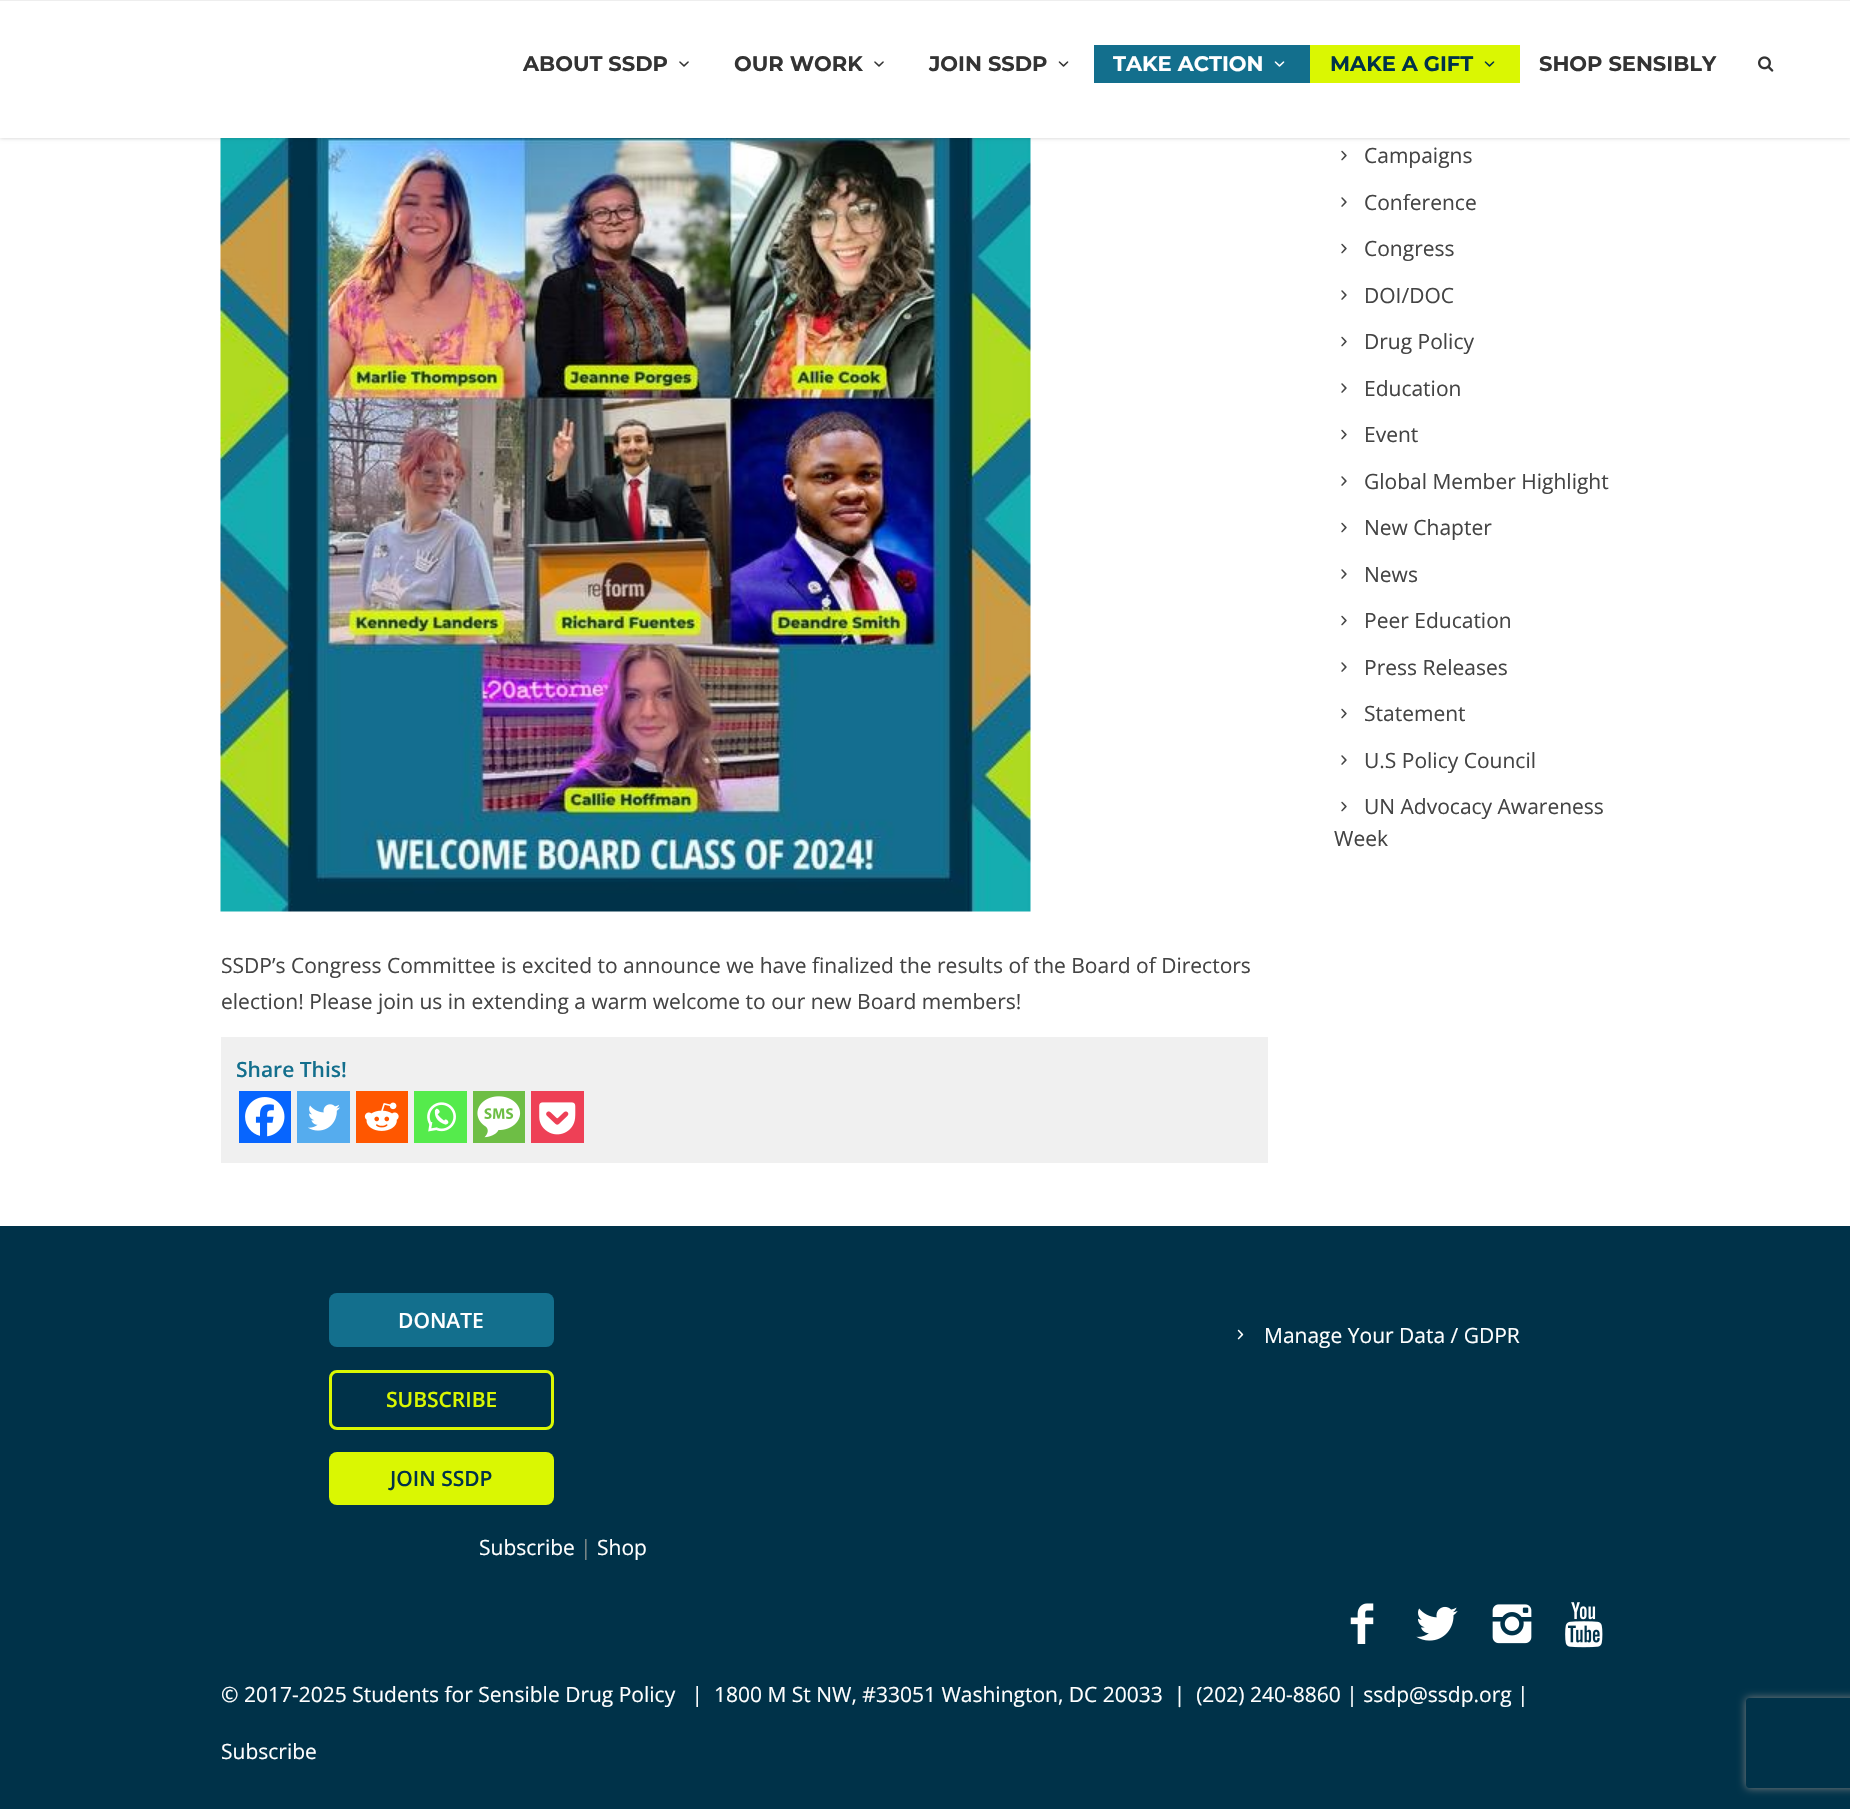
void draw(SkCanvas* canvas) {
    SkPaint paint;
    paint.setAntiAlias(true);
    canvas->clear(0xFFFFFFFF);
    canvas->drawImageRect(SkImages::DeferredFromEncodedData(SkData::MakeFromFileName("img8.png")), SkRect::MakeXYWH(220, 138, 811, 774), SkSamplingOptions());
    paint.setColor(0x33000000);
    paint.setMaskFilter(SkMaskFilter::MakeBlur(kNormal_SkBlurStyle, 2));
    canvas->drawRect(SkRect::MakeXYWH(0, -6, 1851, 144), paint);
    paint.setMaskFilter(nullptr);
    paint.setColor(0xFFFFFFFF);
    canvas->drawRect(SkRect::MakeXYWH(0, 1, 1850, 137), paint);
    paint.setColor(0xFFEEEEEE);
    canvas->drawRect(SkRect::MakeXYWH(0, 0, 1850, 1), paint);
    SkFont font1(fontMgr->matchFamilyStyle("Montserrat", SkFontStyle::Bold()), 21);
    font1.setSubpixel(true);
    paint.setColor(0xFF333333);
    canvas->drawString("ABOUT SSDP", 523, 71, font1, paint);
    canvas->drawImageRect(SkImages::DeferredFromEncodedData(SkData::MakeFromFileName("img1.png")), SkRect::MakeXYWH(679, 61, 10, 6), SkSamplingOptions());
    canvas->drawString("OUR WORK", 734, 71, font1, paint);
    canvas->drawImageRect(SkImages::DeferredFromEncodedData(SkData::MakeFromFileName("img1.png")), SkRect::MakeXYWH(874, 61, 10, 6), SkSamplingOptions());
    canvas->drawString("JOIN SSDP", 929, 71, font1, paint);
    canvas->drawImageRect(SkImages::DeferredFromEncodedData(SkData::MakeFromFileName("img2.png")), SkRect::MakeXYWH(1058, 61, 11, 6), SkSamplingOptions());
    paint.setColor(0xFF136F8D);
    canvas->drawRect(SkRect::MakeXYWH(1094, 45, 216, 38), paint);
    paint.setColor(0xFFFFFFFF);
    canvas->drawString("TAKE ACTION", 1113, 71, font1, paint);
    canvas->drawImageRect(SkImages::DeferredFromEncodedData(SkData::MakeFromFileName("img3.png")), SkRect::MakeXYWH(1274, 61, 11, 6), SkSamplingOptions());
    paint.setColor(0xFFDAF702);
    canvas->drawRect(SkRect::MakeXYWH(1310, 45, 210, 38), paint);
    paint.setColor(0xFF003249);
    canvas->drawString("MAKE A GIFT", 1330, 71, font1, paint);
    canvas->drawImageRect(SkImages::DeferredFromEncodedData(SkData::MakeFromFileName("img4.png")), SkRect::MakeXYWH(1484, 61, 11, 6), SkSamplingOptions());
    paint.setColor(0xFF333333);
    canvas->drawString("SHOP SENSIBLY", 1539, 71, font1, paint);
    canvas->drawImageRect(SkImages::DeferredFromEncodedData(SkData::MakeFromFileName("img5.png")), SkRect::MakeXYWH(1758, 56, 16, 16), SkSamplingOptions());
    canvas->drawImageRect(SkImages::DeferredFromEncodedData(SkData::MakeFromFileName("img6.png")), SkRect::MakeXYWH(1341, 150, 6, 11), SkSamplingOptions());
    SkFont font2(fontMgr->matchFamilyStyle("Open Sans", SkFontStyle::Normal()), 21);
    font2.setSubpixel(true);
    paint.setColor(0xFF444444);
    canvas->drawString("Campaigns", 1364, 163, font2, paint);
    canvas->drawImageRect(SkImages::DeferredFromEncodedData(SkData::MakeFromFileName("img7.png")), SkRect::MakeXYWH(1341, 197, 6, 10), SkSamplingOptions());
    canvas->drawString("Conference", 1364, 210, font2, paint);
    canvas->drawImageRect(SkImages::DeferredFromEncodedData(SkData::MakeFromFileName("img6.png")), SkRect::MakeXYWH(1341, 243, 6, 11), SkSamplingOptions());
    canvas->drawString("Congress", 1364, 256, font2, paint);
    canvas->drawImageRect(SkImages::DeferredFromEncodedData(SkData::MakeFromFileName("img7.png")), SkRect::MakeXYWH(1341, 290, 6, 10), SkSamplingOptions());
    canvas->drawString("DOI/DOC", 1364, 303, font2, paint);
    canvas->drawImageRect(SkImages::DeferredFromEncodedData(SkData::MakeFromFileName("img6.png")), SkRect::MakeXYWH(1341, 336, 6, 11), SkSamplingOptions());
    canvas->drawString("Drug Policy", 1364, 349, font2, paint);
    canvas->drawImageRect(SkImages::DeferredFromEncodedData(SkData::MakeFromFileName("img7.png")), SkRect::MakeXYWH(1341, 383, 6, 10), SkSamplingOptions());
    canvas->drawString("Education", 1364, 396, font2, paint);
    canvas->drawImageRect(SkImages::DeferredFromEncodedData(SkData::MakeFromFileName("img6.png")), SkRect::MakeXYWH(1341, 429, 6, 11), SkSamplingOptions());
    canvas->drawString("Event", 1364, 442, font2, paint);
    canvas->drawImageRect(SkImages::DeferredFromEncodedData(SkData::MakeFromFileName("img7.png")), SkRect::MakeXYWH(1341, 476, 6, 10), SkSamplingOptions());
    canvas->drawString("Global Member Highlight", 1364, 489, font2, paint);
    canvas->drawImageRect(SkImages::DeferredFromEncodedData(SkData::MakeFromFileName("img6.png")), SkRect::MakeXYWH(1341, 522, 6, 11), SkSamplingOptions());
    canvas->drawString("New Chapter", 1364, 535, font2, paint);
    canvas->drawImageRect(SkImages::DeferredFromEncodedData(SkData::MakeFromFileName("img7.png")), SkRect::MakeXYWH(1341, 569, 6, 10), SkSamplingOptions());
    canvas->drawString("News", 1364, 582, font2, paint);
    canvas->drawImageRect(SkImages::DeferredFromEncodedData(SkData::MakeFromFileName("img6.png")), SkRect::MakeXYWH(1341, 615, 6, 11), SkSamplingOptions());
    canvas->drawString("Peer Education", 1364, 628, font2, paint);
    canvas->drawImageRect(SkImages::DeferredFromEncodedData(SkData::MakeFromFileName("img7.png")), SkRect::MakeXYWH(1341, 662, 6, 10), SkSamplingOptions());
    canvas->drawString("Press Releases", 1364, 675, font2, paint);
    canvas->drawImageRect(SkImages::DeferredFromEncodedData(SkData::MakeFromFileName("img6.png")), SkRect::MakeXYWH(1341, 708, 6, 11), SkSamplingOptions());
    canvas->drawString("Statement", 1364, 721, font2, paint);
    canvas->drawImageRect(SkImages::DeferredFromEncodedData(SkData::MakeFromFileName("img7.png")), SkRect::MakeXYWH(1341, 755, 6, 10), SkSamplingOptions());
    canvas->drawString("U.S Policy Council", 1364, 768, font2, paint);
    canvas->drawImageRect(SkImages::DeferredFromEncodedData(SkData::MakeFromFileName("img6.png")), SkRect::MakeXYWH(1341, 801, 6, 11), SkSamplingOptions());
    canvas->drawString("UN Advocacy Awareness", 1364, 814, font2, paint);
    canvas->drawString("Week", 1334, 846, font2, paint);
    canvas->drawString("SSDP’s Congress Committee is excited to announce we have finalized the results of the Board of Directors", 221, 973, font2, paint);
    canvas->drawString("election! Please join us in extending a warm welcome to our new Board members!", 221, 1009, font2, paint);
    paint.setColor(0xFFF0F0F0);
    canvas->drawRect(SkRect::MakeXYWH(221, 1037, 1047, 126), paint);
    SkFont font3(fontMgr->matchFamilyStyle("Open Sans", SkFontStyle(600, SkFontStyle::kNormal_Width, SkFontStyle::kUpright_Slant)), 21);
    font3.setSubpixel(true);
    paint.setColor(0xFF136F8D);
    canvas->drawString("Share This!", 236, 1077, font3, paint);
    paint.setColor(0xFF0765FE);
    canvas->drawRect(SkRect::MakeXYWH(239, 1091, 52, 52), paint);
    canvas->drawImageRect(SkImages::DeferredFromEncodedData(SkData::MakeFromFileName("img9.png")), SkRect::MakeXYWH(245, 1097, 40, 40), SkSamplingOptions());
    paint.setColor(0xFF55ACEE);
    canvas->drawRect(SkRect::MakeXYWH(297, 1091, 53, 52), paint);
    canvas->drawImageRect(SkImages::DeferredFromEncodedData(SkData::MakeFromFileName("img10.png")), SkRect::MakeXYWH(308, 1104, 32, 27), SkSamplingOptions());
    paint.setColor(0xFFFF5700);
    canvas->drawRect(SkRect::MakeXYWH(356, 1091, 52, 52), paint);
    canvas->drawImageRect(SkImages::DeferredFromEncodedData(SkData::MakeFromFileName("img11.png")), SkRect::MakeXYWH(364, 1102, 35, 29), SkSamplingOptions());
    paint.setColor(0xFF55EB4C);
    canvas->drawRect(SkRect::MakeXYWH(414, 1091, 53, 52), paint);
    canvas->drawImageRect(SkImages::DeferredFromEncodedData(SkData::MakeFromFileName("img12.png")), SkRect::MakeXYWH(427, 1102, 29, 30), SkSamplingOptions());
    paint.setColor(0xFF6EBE45);
    canvas->drawRect(SkRect::MakeXYWH(473, 1091, 52, 52), paint);
    canvas->drawImageRect(SkImages::DeferredFromEncodedData(SkData::MakeFromFileName("img13.png")), SkRect::MakeXYWH(477, 1096, 44, 42), SkSamplingOptions());
    paint.setColor(0xFFEE4056);
    canvas->drawRect(SkRect::MakeXYWH(531, 1091, 53, 52), paint);
    canvas->drawImageRect(SkImages::DeferredFromEncodedData(SkData::MakeFromFileName("img14.png")), SkRect::MakeXYWH(539, 1102, 37, 33), SkSamplingOptions());
    paint.setColor(0xFF003249);
    canvas->drawRect(SkRect::MakeXYWH(0, 1226, 1850, 583), paint);
    paint.setColor(0xFF136F8D);
    canvas->drawRoundRect(SkRect::MakeXYWH(329, 1293, 225, 54), 8, 8, paint);
    paint.setColor(0xFFFFFFFF);
    canvas->drawString("DONATE", 398, 1328, font3, paint);
    paint.setStyle(SkPaint::kStroke_Style);
    paint.setStrokeWidth(3);
    paint.setColor(0xFFDAF702);
    canvas->drawRoundRect(SkRect::MakeXYWH(330.5f, 1371.5f, 222, 57), 6.5f, 6.5f, paint);
    paint.setStyle(SkPaint::kFill_Style);
    canvas->drawString("SUBSCRIBE", 386, 1407, font3, paint);
    canvas->drawRoundRect(SkRect::MakeXYWH(329, 1452, 225, 53), 8, 8, paint);
    paint.setColor(0xFF003249);
    canvas->drawString("JOIN SSDP", 390, 1486, font3, paint);
    paint.setColor(0xFFFFFFFF);
    canvas->drawString("Subscribe", 479, 1555, font2, paint);
    paint.setColor(0xFF7B8887);
    canvas->drawString("|", 580, 1555, font2, paint);
    paint.setColor(0xFFFFFFFF);
    canvas->drawString("Shop", 597, 1555, font2, paint);
    canvas->drawImageRect(SkImages::DeferredFromEncodedData(SkData::MakeFromFileName("img15.png")), SkRect::MakeXYWH(1237, 1329, 7, 11), SkSamplingOptions());
    canvas->drawString("Manage Your Data / GDPR", 1264, 1343, font2, paint);
    canvas->drawImageRect(SkImages::DeferredFromEncodedData(SkData::MakeFromFileName("img16.png")), SkRect::MakeXYWH(1350, 1603, 24, 41), SkSamplingOptions());
    canvas->drawImageRect(SkImages::DeferredFromEncodedData(SkData::MakeFromFileName("img17.png")), SkRect::MakeXYWH(1416, 1606, 42, 35), SkSamplingOptions());
    canvas->drawImageRect(SkImages::DeferredFromEncodedData(SkData::MakeFromFileName("img18.png")), SkRect::MakeXYWH(1492, 1604, 40, 40), SkSamplingOptions());
    canvas->drawImageRect(SkImages::DeferredFromEncodedData(SkData::MakeFromFileName("img19.png")), SkRect::MakeXYWH(1565, 1602, 38, 46), SkSamplingOptions());
    canvas->drawString("© 2017-2025 Students for Sensible Drug Policy   |  1800 M St NW, #33051 Washington, DC 20033  |  (202) 240-8860 | ssdp@ssdp.org |", 221, 1702, font2, paint);
    canvas->drawString("Subscribe", 221, 1759, font2, paint);
    canvas->save();
    canvas->clipPath(SkPathBuilder(SkPathFillType::kEvenOdd).moveTo(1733, 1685).lineTo(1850, 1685).lineTo(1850, 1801).lineTo(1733, 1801).close().moveTo(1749, 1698).lineTo(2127, 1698).cubicTo(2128.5f, 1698, 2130, 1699.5f, 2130, 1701).lineTo(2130, 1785).cubicTo(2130, 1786.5f, 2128.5f, 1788, 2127, 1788).lineTo(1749, 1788).cubicTo(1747.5f, 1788, 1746, 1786.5f, 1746, 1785).lineTo(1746, 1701).cubicTo(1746, 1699.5f, 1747.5f, 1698, 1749, 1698).close().detach(), true);
    paint.setColor(0xFF808080);
    paint.setMaskFilter(SkMaskFilter::MakeBlur(kNormal_SkBlurStyle, 4));
    canvas->drawRoundRect(SkRect::MakeXYWH(1746, 1698, 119, 90), 3, 3, paint);
    paint.setMaskFilter(nullptr);
    canvas->restore();
}
